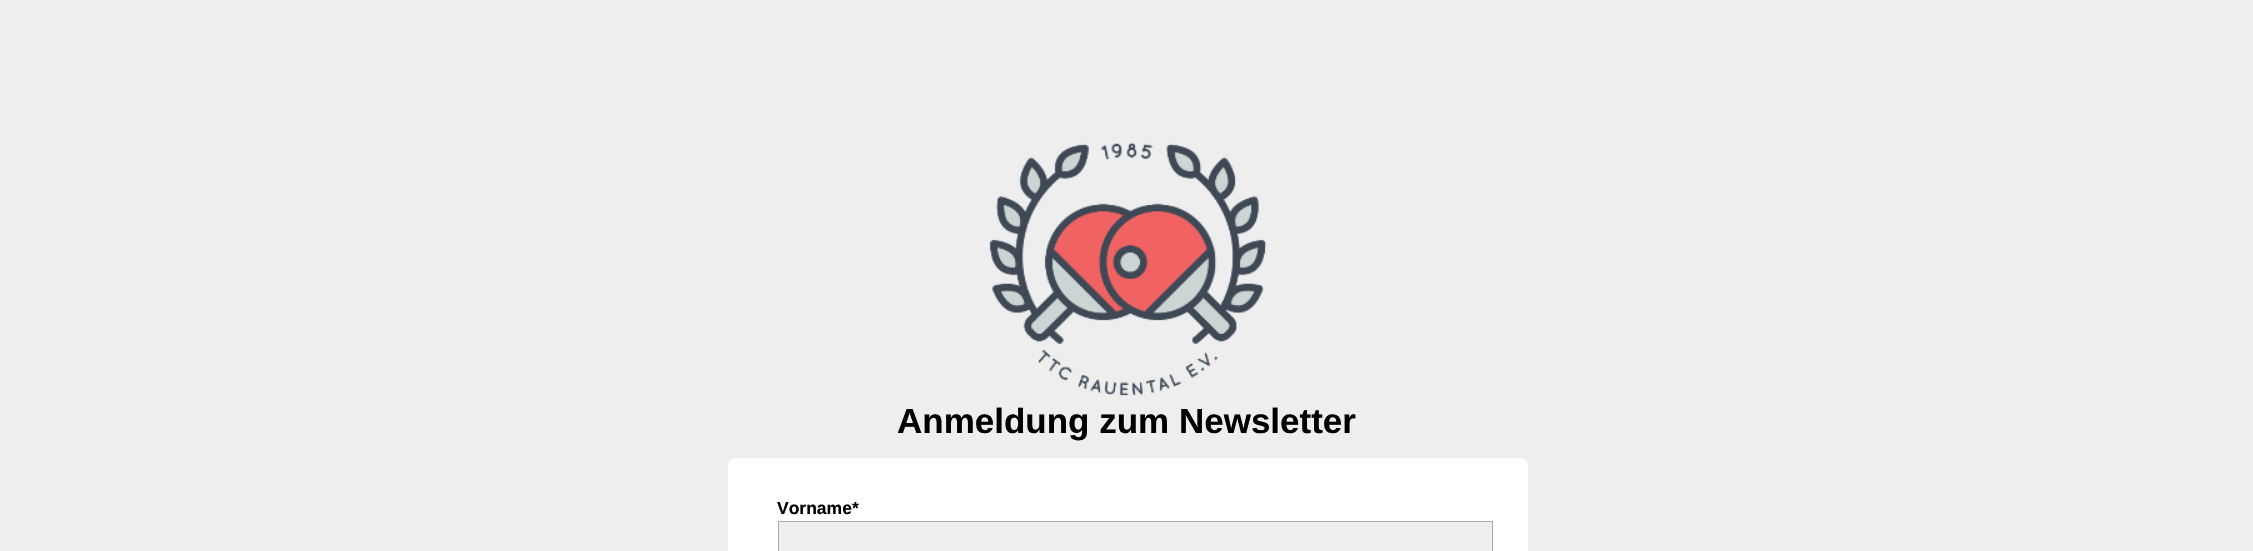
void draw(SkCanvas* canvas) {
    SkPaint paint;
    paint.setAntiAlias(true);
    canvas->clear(0xFFEEEEEE);
    canvas->drawImageRect(SkImages::DeferredFromEncodedData(SkData::MakeFromFileName("img1.png")), SkRect::MakeXYWH(989, 142, 278, 254), SkSamplingOptions());
    SkFont font1(fontMgr->matchFamilyStyle("Liberation Sans", SkFontStyle::Bold()), 35);
    font1.setSubpixel(true);
    paint.setColor(0xFF000000);
    canvas->drawString("Anmeldung zum Newsletter", 897, 433, font1, paint);
    paint.setColor(0xFFFFFFFF);
    canvas->drawRoundRect(SkRect::MakeXYWH(728, 458, 800, 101), 8, 8, paint);
    SkFont font2(fontMgr->matchFamilyStyle("Liberation Sans", SkFontStyle::Bold()), 17.5f);
    font2.setSubpixel(true);
    paint.setColor(0xFF000000);
    canvas->drawString("Vorname*", 777, 514, font2, paint);
    paint.setColor(0xFFEEEEEE);
    canvas->drawRect(SkRect::MakeXYWH(778.5f, 521.5f, 714, 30), paint);
    paint.setStyle(SkPaint::kStroke_Style);
    paint.setStrokeWidth(1);
    paint.setColor(0xFFAAAAAA);
    canvas->drawRect(SkRect::MakeXYWH(778.5f, 521.5f, 714, 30), paint);
}
